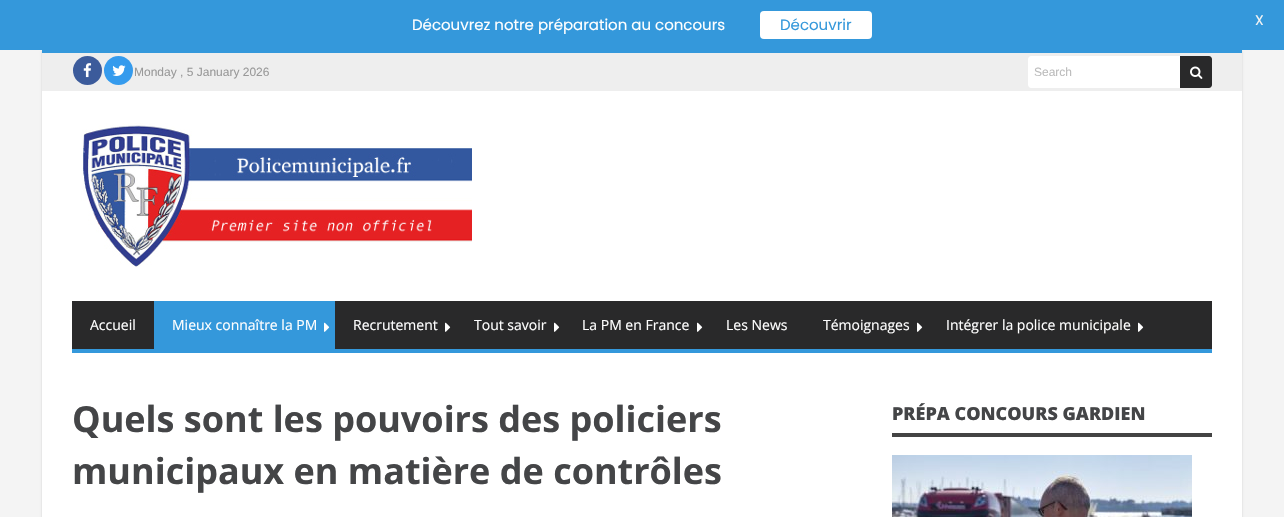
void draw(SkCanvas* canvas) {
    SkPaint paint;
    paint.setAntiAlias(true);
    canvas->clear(0xFFF4F4F4);
    paint.setColor(0x26000000);
    paint.setMaskFilter(SkMaskFilter::MakeBlur(kNormal_SkBlurStyle, 1));
    canvas->drawRect(SkRect::MakeXYWH(42, 51, 1200, 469), paint);
    paint.setMaskFilter(nullptr);
    paint.setColor(0xFF3498DB);
    canvas->drawRect(SkRect::MakeXYWH(0, 0, 1284, 50), paint);
    SkFont font1(fontMgr->matchFamilyStyle("Poppins", SkFontStyle::Normal()), 15);
    font1.setSubpixel(true);
    paint.setColor(0xFFFFFFFF);
    canvas->drawString("Découvrez notre préparation au concours", 412, 30, font1, paint);
    canvas->drawRoundRect(SkRect::MakeXYWH(760, 11, 112, 28), 4, 4, paint);
    paint.setColor(0xFF3498DB);
    canvas->drawString("Découvrir", 780, 30, font1, paint);
    SkFont font2(fontMgr->matchFamilyStyle("Poppins", SkFontStyle::Normal()), 14);
    font2.setSubpixel(true);
    paint.setColor(0xFFF4F4F4);
    canvas->drawString("X", 1255, 25, font2, paint);
    paint.setColor(0xFFFFFFFF);
    canvas->drawRect(SkRect::MakeXYWH(42, 91, 1200, 426), paint);
    paint.setColor(0xFFEEEEEE);
    canvas->drawRect(SkRect::MakeXYWH(42, 53, 1200, 38), paint);
    paint.setColor(0xFF3498DB);
    canvas->drawRect(SkRect::MakeXYWH(42, 50, 1200, 3), paint);
    paint.setColor(0xFF3C5B9B);
    canvas->drawCircle(87.5f, 70.5f, 14.5f, paint);
    canvas->drawImageRect(SkImages::DeferredFromEncodedData(SkData::MakeFromFileName("img1.png")), SkRect::MakeXYWH(83, 63, 9, 15), SkSamplingOptions());
    paint.setColor(0xFF359BED);
    canvas->drawCircle(118.5f, 70.5f, 14.5f, paint);
    canvas->drawImageRect(SkImages::DeferredFromEncodedData(SkData::MakeFromFileName("img2.png")), SkRect::MakeXYWH(112, 65, 14, 11), SkSamplingOptions());
    SkFont font3(fontMgr->matchFamilyStyle("Liberation Sans", SkFontStyle::Normal()), 12);
    font3.setSubpixel(true);
    paint.setColor(0xFF999999);
    canvas->drawString("Monday , 5 January 2026", 134, 76, font3, paint);
    paint.setColor(0xFFFFFFFF);
    canvas->drawPath(SkPathBuilder().moveTo(1031, 56).lineTo(1180, 56).lineTo(1180, 88).lineTo(1031, 88).cubicTo(1029.5f, 88, 1028, 86.5f, 1028, 85).lineTo(1028, 59).cubicTo(1028, 57.5f, 1029.5f, 56, 1031, 56).close().detach(), paint);
    paint.setColor(0xFFBBBBBB);
    canvas->drawString("Search", 1034, 76, font3, paint);
    paint.setColor(0xFF29292A);
    canvas->drawPath(SkPathBuilder().moveTo(1180, 56).lineTo(1209, 56).cubicTo(1210.5f, 56, 1212, 57.5f, 1212, 59).lineTo(1212, 85).cubicTo(1212, 86.5f, 1210.5f, 88, 1209, 88).lineTo(1180, 88).close().detach(), paint);
    canvas->drawImageRect(SkImages::DeferredFromEncodedData(SkData::MakeFromFileName("img3.png")), SkRect::MakeXYWH(1190, 66, 13, 13), SkSamplingOptions());
    canvas->drawImageRect(SkImages::DeferredFromEncodedData(SkData::MakeFromFileName("img4.png")), SkRect::MakeXYWH(81, 123, 391, 144), SkSamplingOptions());
    canvas->drawRect(SkRect::MakeXYWH(72, 301, 1140, 48), paint);
    paint.setColor(0xFF3498DB);
    canvas->drawRect(SkRect::MakeXYWH(72, 349, 1140, 4), paint);
    SkFont font4(fontMgr->matchFamilyStyle("Open Sans", SkFontStyle::Normal()), 14);
    font4.setSubpixel(true);
    paint.setColor(0xFFFFFFFF);
    canvas->drawString("Accueil", 90, 330, font4, paint);
    paint.setColor(0xFF3498DB);
    canvas->drawRect(SkRect::MakeXYWH(154, 301, 181, 48), paint);
    paint.setColor(0xFFFFFFFF);
    canvas->drawString("Mieux connaître la PM", 172, 330, font4, paint);
    canvas->drawImageRect(SkImages::DeferredFromEncodedData(SkData::MakeFromFileName("img5.png")), SkRect::MakeXYWH(324, 322, 6, 10), SkSamplingOptions());
    canvas->drawString("Recrutement", 353, 330, font4, paint);
    canvas->drawImageRect(SkImages::DeferredFromEncodedData(SkData::MakeFromFileName("img6.png")), SkRect::MakeXYWH(445, 322, 6, 10), SkSamplingOptions());
    canvas->drawString("Tout savoir", 474, 330, font4, paint);
    canvas->drawImageRect(SkImages::DeferredFromEncodedData(SkData::MakeFromFileName("img6.png")), SkRect::MakeXYWH(554, 322, 6, 10), SkSamplingOptions());
    canvas->drawString("La PM en France", 582, 330, font4, paint);
    canvas->drawImageRect(SkImages::DeferredFromEncodedData(SkData::MakeFromFileName("img6.png")), SkRect::MakeXYWH(697, 322, 6, 10), SkSamplingOptions());
    canvas->drawString("Les News", 726, 330, font4, paint);
    canvas->drawString("Témoignages", 823, 330, font4, paint);
    canvas->drawImageRect(SkImages::DeferredFromEncodedData(SkData::MakeFromFileName("img6.png")), SkRect::MakeXYWH(917, 322, 6, 10), SkSamplingOptions());
    canvas->drawString("Intégrer la police municipale", 946, 330, font4, paint);
    canvas->drawImageRect(SkImages::DeferredFromEncodedData(SkData::MakeFromFileName("img6.png")), SkRect::MakeXYWH(1138, 322, 6, 10), SkSamplingOptions());
    SkFont font5(fontMgr->matchFamilyStyle("Open Sans", SkFontStyle::Bold()), 36);
    font5.setSubpixel(true);
    paint.setColor(0xFF444547);
    canvas->drawString("Quels sont les pouvoirs des policiers", 72, 432, font5, paint);
    canvas->drawString("municipaux en matière de contrôles", 72, 484, font5, paint);
    paint.setColor(0xFF444444);
    canvas->drawRect(SkRect::MakeXYWH(892, 433, 320, 4), paint);
    SkFont font6(fontMgr->matchFamilyStyle("Open Sans", SkFontStyle(800, SkFontStyle::kNormal_Width, SkFontStyle::kUpright_Slant)), 18);
    font6.setSubpixel(true);
    paint.setColor(0xFF444547);
    canvas->drawString("PRÉPA CONCOURS GARDIEN", 892, 420, font6, paint);
    canvas->drawImageRect(SkImages::DeferredFromEncodedData(SkData::MakeFromFileName("img7.png")), SkRect::MakeXYWH(892, 455, 300, 62), SkSamplingOptions());
}
